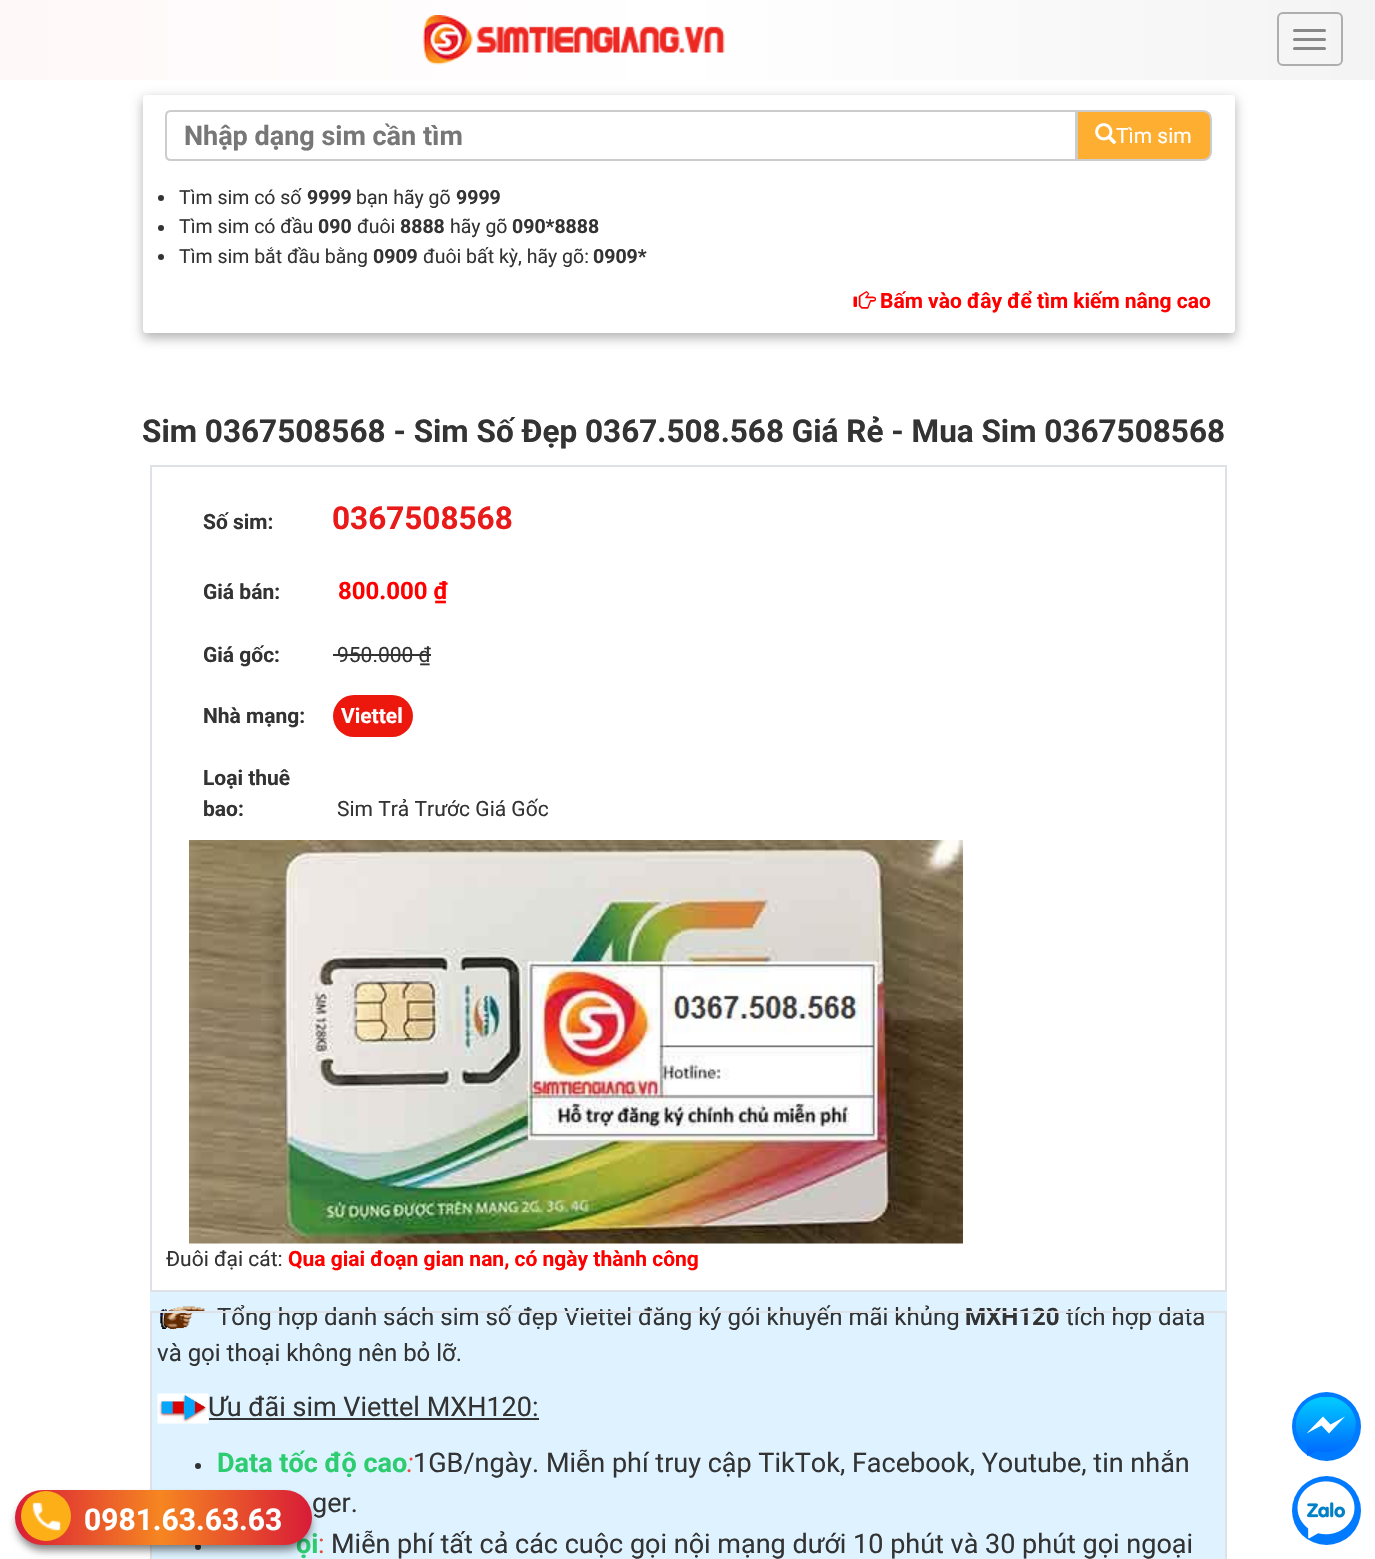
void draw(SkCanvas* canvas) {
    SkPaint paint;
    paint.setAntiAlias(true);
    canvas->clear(0xFFFFFFFF);
    {
        const SkColor colors[] = {0xFFFFF8F9, 0xFFFFFFFF, 0xFFF4F4F4};
        const float stops[] = {0, 0.49f, 0.99f};
        const SkPoint ends[] = {{0, 40}, {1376, 40}};
        paint.setShader(SkGradientShader::MakeLinear(ends, colors, stops, 3, SkTileMode::kClamp));
        paint.setAlpha(255);
    }
    canvas->drawRect(SkRect::MakeXYWH(0, 0, 1375, 80), paint);
    canvas->drawImageRect(SkImages::DeferredFromEncodedData(SkData::MakeFromFileName("img1.png")), SkRect::MakeXYWH(422, 15, 303, 50), SkSamplingOptions());
    paint.setStyle(SkPaint::kStroke_Style);
    paint.setStrokeWidth(2);
    paint.setShader(nullptr);
    paint.setColor(0xFFAEAEAE);
    canvas->drawRoundRect(SkRect::MakeXYWH(1278, 13, 64, 52), 5, 5, paint);
    paint.setStyle(SkPaint::kFill_Style);
    paint.setColor(0xFF888888);
    canvas->drawRoundRect(SkRect::MakeXYWH(1293, 29, 33, 3), 1.5f, 1.5f, paint);
    canvas->drawRoundRect(SkRect::MakeXYWH(1293, 38, 33, 3), 1.5f, 1.5f, paint);
    canvas->drawRoundRect(SkRect::MakeXYWH(1293, 47, 33, 3), 1.5f, 1.5f, paint);
    canvas->save();
    canvas->clipPath(SkPathBuilder(SkPathFillType::kEvenOdd).moveTo(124, 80).lineTo(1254, 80).lineTo(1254, 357).lineTo(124, 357).close().moveTo(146, 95).lineTo(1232, 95).cubicTo(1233.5f, 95, 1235, 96.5f, 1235, 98).lineTo(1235, 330).cubicTo(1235, 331.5f, 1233.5f, 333, 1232, 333).lineTo(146, 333).cubicTo(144.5f, 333, 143, 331.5f, 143, 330).lineTo(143, 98).cubicTo(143, 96.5f, 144.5f, 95, 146, 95).close().detach(), true);
    paint.setColor(0x4D000000);
    paint.setMaskFilter(SkMaskFilter::MakeBlur(kNormal_SkBlurStyle, 6));
    canvas->drawRoundRect(SkRect::MakeXYWH(143, 99, 1092, 239), 3, 3, paint);
    paint.setMaskFilter(nullptr);
    canvas->restore();
    paint.setColor(0xFFFEAF32);
    canvas->drawPath(SkPathBuilder().moveTo(1077, 111).lineTo(1203, 111).cubicTo(1207.5f, 111, 1211, 114.5f, 1211, 119).lineTo(1211, 152).cubicTo(1211, 156.5f, 1207.5f, 160, 1203, 160).lineTo(1077, 160).close().detach(), paint);
    paint.setStyle(SkPaint::kStroke_Style);
    paint.setColor(0xFFCCCCCC);
    canvas->drawPath(SkPathBuilder().moveTo(1077, 111).lineTo(1203, 111).cubicTo(1207.5f, 111, 1211, 114.5f, 1211, 119).lineTo(1211, 152).cubicTo(1211, 156.5f, 1207.5f, 160, 1203, 160).lineTo(1077, 160).close().detach(), paint);
    paint.setStyle(SkPaint::kFill_Style);
    paint.setColor(0xFFFFFFFF);
    canvas->drawPath(SkPathBuilder().moveTo(171, 111).lineTo(1076, 111).lineTo(1076, 160).lineTo(171, 160).cubicTo(168, 160, 166, 158, 166, 155).lineTo(166, 116).cubicTo(166, 113, 168, 111, 171, 111).close().detach(), paint);
    paint.setStyle(SkPaint::kStroke_Style);
    paint.setColor(0xFFCCCCCC);
    canvas->drawPath(SkPathBuilder().moveTo(171, 111).lineTo(1076, 111).lineTo(1076, 160).lineTo(171, 160).cubicTo(168, 160, 166, 158, 166, 155).lineTo(166, 116).cubicTo(166, 113, 168, 111, 171, 111).close().detach(), paint);
    SkFont font1(fontMgr->matchFamilyStyle("Roboto", SkFontStyle::Bold()), 27);
    font1.setSubpixel(true);
    paint.setStyle(SkPaint::kFill_Style);
    paint.setColor(0xFF777777);
    canvas->drawString("Nhập dạng sim cần tìm", 184, 145, font1, paint);
    SkFont font2(fontMgr->matchFamilyStyle("Roboto", SkFontStyle::Normal()), 21);
    font2.setSubpixel(true);
    paint.setColor(0xFFFFFFFF);
    canvas->drawString("Tìm sim", 1116, 143, font2, paint);
    canvas->drawImageRect(SkImages::DeferredFromEncodedData(SkData::MakeFromFileName("img2.png")), SkRect::MakeXYWH(1095, 123, 22, 22), SkSamplingOptions());
    paint.setColor(0xFF333333);
    canvas->drawCircle(161, 198, 3, paint);
    SkFont font3(fontMgr->matchFamilyStyle("Roboto", SkFontStyle::Normal()), 19.5f);
    font3.setSubpixel(true);
    canvas->drawString("Tìm sim có số", 179, 204, font3, paint);
    SkFont font4(fontMgr->matchFamilyStyle("Roboto", SkFontStyle::Bold()), 19.5f);
    font4.setSubpixel(true);
    canvas->drawString("9999", 307, 204, font4, paint);
    canvas->drawString("bạn hãy gõ", 356, 204, font3, paint);
    canvas->drawString("9999", 456, 204, font4, paint);
    canvas->drawCircle(161, 228, 3, paint);
    canvas->drawString("Tìm sim có đầu", 179, 233, font3, paint);
    canvas->drawString("090", 318, 233, font4, paint);
    canvas->drawString("đuôi", 357, 233, font3, paint);
    canvas->drawString("8888", 400, 233, font4, paint);
    canvas->drawString("hãy gõ", 450, 233, font3, paint);
    canvas->drawString("090*8888", 512, 233, font4, paint);
    canvas->drawCircle(161, 257, 3, paint);
    canvas->drawString("Tìm sim bắt đầu bằng", 179, 263, font3, paint);
    canvas->drawString("0909", 373, 263, font4, paint);
    canvas->drawString("đuôi bất kỳ, hãy gõ:", 423, 263, font3, paint);
    canvas->drawString("0909*", 593, 263, font4, paint);
    canvas->drawImageRect(SkImages::DeferredFromEncodedData(SkData::MakeFromFileName("img3.png")), SkRect::MakeXYWH(853, 291, 24, 18), SkSamplingOptions());
    SkFont font5(fontMgr->matchFamilyStyle("Roboto", SkFontStyle::Bold()), 21);
    font5.setSubpixel(true);
    paint.setColor(0xFFFF0000);
    canvas->drawString("Bấm vào đây để tìm kiếm nâng cao", 880, 308, font5, paint);
    SkFont font6(fontMgr->matchFamilyStyle("Roboto", SkFontStyle::Bold()), 31.5f);
    font6.setSubpixel(true);
    paint.setColor(0xFF333333);
    canvas->drawString("Sim 0367508568 - Sim Số Đẹp 0367.508.568 Giá Rẻ - Mua Sim 0367508568", 142, 442, font6, paint);
    paint.setStyle(SkPaint::kStroke_Style);
    paint.setColor(0xFFDEE2E6);
    canvas->drawRect(SkRect::MakeXYWH(151, 466, 1075, 825), paint);
    paint.setStyle(SkPaint::kFill_Style);
    paint.setColor(0xFF333333);
    canvas->drawString("Số sim:", 203, 529, font5, paint);
    paint.setColor(0xFFE91A1A);
    canvas->drawString("0367508568", 332, 529, font6, paint);
    paint.setColor(0xFF333333);
    canvas->drawString("Giá bán:", 203, 599, font5, paint);
    SkFont font7(fontMgr->matchFamilyStyle("Roboto", SkFontStyle::Bold()), 24);
    font7.setSubpixel(true);
    paint.setColor(0xFFFF0000);
    canvas->drawString("800.000 ₫", 338, 599, font7, paint);
    paint.setColor(0xFF333333);
    canvas->drawString("Giá gốc:", 203, 662, font5, paint);
    canvas->drawString("950.000 ₫", 337, 662, font2, paint);
    canvas->drawRect(SkRect::MakeXYWH(333, 654, 98, 2), paint);
    canvas->drawString("Nhà mạng:", 203, 723, font5, paint);
    paint.setColor(0xFFEC170D);
    canvas->drawRoundRect(SkRect::MakeXYWH(333, 695, 80, 42), 21, 21, paint);
    paint.setColor(0xFFFFFFFF);
    canvas->drawString("Viettel", 341, 723, font5, paint);
    paint.setColor(0xFF333333);
    canvas->drawString("Loại thuê", 203, 785, font5, paint);
    canvas->drawString("bao:", 203, 816, font5, paint);
    canvas->drawString("Sim Trả Trước Giá Gốc", 337, 816, font2, paint);
    canvas->drawImageRect(SkImages::DeferredFromEncodedData(SkData::MakeFromFileName("img4.png")), SkRect::MakeXYWH(189, 840, 774, 404), SkSamplingOptions());
    canvas->drawString("Đuôi đại cát:", 166, 1266, font2, paint);
    paint.setColor(0xFFFF0000);
    canvas->drawString("Qua giai đoạn gian nan, có ngày thành công", 288, 1266, font5, paint);
    paint.setColor(0xFFDEF3FF);
    canvas->drawRect(SkRect::MakeXYWH(150, 1292, 1077, 267), paint);
    canvas->drawImageRect(SkImages::DeferredFromEncodedData(SkData::MakeFromFileName("img5.png")), SkRect::MakeXYWH(160, 1306, 45, 23), SkSamplingOptions());
    SkFont font8(fontMgr->matchFamilyStyle("Roboto", SkFontStyle::Normal()), 24);
    font8.setSubpixel(true);
    paint.setColor(0xFF333333);
    canvas->drawString("Tổng hợp danh sách sim số đẹp Viettel đăng ký gói khuyến mãi khủng", 217, 1325, font8, paint);
    canvas->drawString("MXH120", 965, 1325, font7, paint);
    canvas->drawString("tích hợp data", 1066, 1325, font8, paint);
    canvas->drawString("và gọi thoại không nên bỏ lỡ.", 157, 1361, font8, paint);
    canvas->drawImageRect(SkImages::DeferredFromEncodedData(SkData::MakeFromFileName("img6.png")), SkRect::MakeXYWH(157, 1393, 52, 31), SkSamplingOptions());
    SkFont font9(fontMgr->matchFamilyStyle("Roboto", SkFontStyle::Normal()), 27);
    font9.setSubpixel(true);
    canvas->drawString("Ưu đãi sim Viettel MXH120:", 208, 1416, font9, paint);
    canvas->drawRect(SkRect::MakeXYWH(209, 1418, 330, 2), paint);
    canvas->drawCircle(198, 1466, 3, paint);
    paint.setColor(0xFF2ECC71);
    canvas->drawString("Data tốc độ cao", 217, 1472, font1, paint);
    SkFont font10(fontMgr->matchFamilyStyle("Roboto", SkFontStyle::Italic()), 27);
    font10.setSubpixel(true);
    paint.setColor(0xFFE74C3C);
    canvas->drawString(":", 407, 1472, font10, paint);
    paint.setColor(0xFF333333);
    canvas->drawString("1GB/ngày. Miễn phí truy cập TikTok, Facebook, Youtube, tin nhắn", 413, 1472, font9, paint);
    canvas->drawString("ger.", 312, 1512, font9, paint);
    canvas->drawCircle(198, 1547, 3, paint);
    paint.setColor(0xFF2ECC71);
    canvas->drawString("ọi", 296, 1553, font1, paint);
    paint.setColor(0xFFE74C3C);
    canvas->drawString(":", 318, 1553, font9, paint);
    paint.setColor(0xFF333333);
    canvas->drawString("Miễn phí tất cả các cuộc gọi nội mạng dưới 10 phút và 30 phút gọi ngoại", 331, 1553, font9, paint);
    paint.setStyle(SkPaint::kStroke_Style);
    paint.setColor(0xFFDEE2E6);
    canvas->drawRect(SkRect::MakeXYWH(151, 1312, 1075, 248), paint);
    paint.setStyle(SkPaint::kFill_Style);
    paint.setColor(0xFF007BFF);
    canvas->drawCircle(1326.5f, 1426.5f, 34.5f, paint);
    canvas->save();
    canvas->clipRect(SkRect::MakeXYWH(1296, 1397, 60, 60));
    {
        const SkColor colors[] = {0xFF00C6FF, 0xFF0068FF};
        const float stops[] = {0, 1};
        const SkPoint ends[] = {{1326, 1401}, {1326, 1454}};
        paint.setShader(SkGradientShader::MakeLinear(ends, colors, stops, 2, SkTileMode::kClamp));
        paint.setAlpha(255);
    }
    canvas->drawPath(SkPathBuilder().moveTo(1307, 1446).lineTo(1307, 1456).lineTo(1317, 1451).cubicTo(1333, 1455, 1352, 1447, 1355, 1430).cubicTo(1357, 1422, 1355, 1415, 1351, 1409).cubicTo(1346, 1403, 1339, 1398, 1332, 1397).cubicTo(1302, 1392, 1282, 1427, 1307, 1446).close().detach(), paint);
    canvas->restore();
    paint.setShader(nullptr);
    paint.setColor(0xFFFFFFFF);
    canvas->drawPath(SkPathBuilder().moveTo(1323, 1416.5f).lineTo(1306.5f, 1433.5f).lineTo(1321.5f, 1425.5f).lineTo(1329, 1433.5f).lineTo(1345, 1416.5f).lineTo(1330.5f, 1424.5f).close().detach(), paint);
    paint.setColor(0x80000000);
    paint.setMaskFilter(SkMaskFilter::MakeBlur(kNormal_SkBlurStyle, 4));
    canvas->drawRoundRect(SkRect::MakeXYWH(17, 1497, 294, 53), 26.5f, 26.5f, paint);
    paint.setMaskFilter(nullptr);
    {
        const SkColor colors[] = {0xFFD91D37, 0xFFF68621, 0xFFD91D37};
        const float stops[] = {0, 0.49f, 0.99f};
        const SkPoint ends[] = {{15, 1517}, {312, 1517}};
        paint.setShader(SkGradientShader::MakeLinear(ends, colors, stops, 3, SkTileMode::kClamp));
        paint.setAlpha(255);
    }
    canvas->drawRoundRect(SkRect::MakeXYWH(15, 1490, 297, 55), 27.5f, 27.5f, paint);
    paint.setShader(nullptr);
    paint.setColor(0xFFFCAF17);
    canvas->drawCircle(46, 1516, 25, paint);
    canvas->drawImageRect(SkImages::DeferredFromEncodedData(SkData::MakeFromFileName("img7.png")), SkRect::MakeXYWH(32, 1502, 29, 29), SkSamplingOptions());
    SkFont font11(fontMgr->matchFamilyStyle("Roboto", SkFontStyle::Bold()), 30);
    font11.setSubpixel(true);
    paint.setColor(0xFFFFFFFF);
    canvas->drawString("0981.63.63.63", 84, 1530, font11, paint);
    paint.setColor(0xFF007BFF);
    canvas->drawCircle(1326.5f, 1510.5f, 34.5f, paint);
    canvas->drawImageRect(SkImages::DeferredFromEncodedData(SkData::MakeFromFileName("img8.png")), SkRect::MakeXYWH(1297, 1481, 58, 58), SkSamplingOptions());
}
